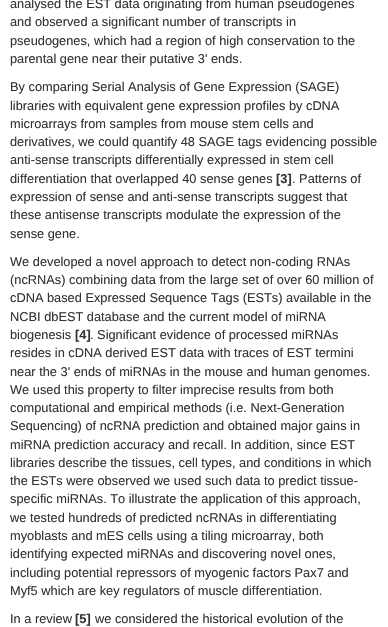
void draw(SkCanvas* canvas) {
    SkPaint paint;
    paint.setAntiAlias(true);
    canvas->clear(0xFFFFFFFF);
    SkFont font1(fontMgr->matchFamilyStyle("Liberation Sans", SkFontStyle::Normal()), 12.8f);
    font1.setSubpixel(true);
    paint.setColor(0xFF333333);
    canvas->drawString("analysed the EST data originating from human pseudogenes", 10, 8, font1, paint);
    canvas->drawString("and observed a significant number of transcripts in", 10, 26, font1, paint);
    canvas->drawString("pseudogenes, which had a region of high conservation to the", 10, 45, font1, paint);
    canvas->drawString("parental gene near their putative 3' ends.", 10, 63, font1, paint);
    canvas->drawString("By comparing Serial Analysis of Gene Expression (SAGE)", 10, 91, font1, paint);
    canvas->drawString("libraries with equivalent gene expression profiles by cDNA", 10, 110, font1, paint);
    canvas->drawString("microarrays from samples from mouse stem cells and", 10, 128, font1, paint);
    canvas->drawString("derivatives, we could quantify 48 SAGE tags evidencing possible", 10, 146, font1, paint);
    canvas->drawString("anti-sense transcripts differentially expressed in stem cell", 10, 164, font1, paint);
    canvas->drawString("differentiation that overlapped 40 sense genes", 10, 183, font1, paint);
    SkFont font2(fontMgr->matchFamilyStyle("Liberation Sans", SkFontStyle::Bold()), 12.8f);
    font2.setSubpixel(true);
    canvas->drawString("[3]", 276, 183, font2, paint);
    canvas->drawString(". Patterns of", 292, 183, font1, paint);
    canvas->drawString("expression of sense and anti-sense transcripts suggest that", 10, 201, font1, paint);
    canvas->drawString("these antisense transcripts modulate the expression of the", 10, 219, font1, paint);
    canvas->drawString("sense gene.", 10, 238, font1, paint);
    canvas->drawString("We developed a novel approach to detect non-coding RNAs", 10, 266, font1, paint);
    canvas->drawString("(ncRNAs) combining data from the large set of over 60 million of", 10, 284, font1, paint);
    canvas->drawString("cDNA based Expressed Sequence Tags (ESTs) available in the", 10, 302, font1, paint);
    canvas->drawString("NCBI dbEST database and the current model of miRNA", 10, 321, font1, paint);
    canvas->drawString("biogenesis", 10, 339, font1, paint);
    canvas->drawString("[4]", 75, 339, font2, paint);
    canvas->drawString(". Significant evidence of processed miRNAs", 90, 339, font1, paint);
    canvas->drawString("resides in cDNA derived EST data with traces of EST termini", 10, 357, font1, paint);
    canvas->drawString("near the 3' ends of miRNAs in the mouse and human genomes.", 10, 376, font1, paint);
    canvas->drawString("We used this property to filter imprecise results from both", 10, 394, font1, paint);
    canvas->drawString("computational and empirical methods (i.e. Next-Generation", 10, 412, font1, paint);
    canvas->drawString("Sequencing) of ncRNA prediction and obtained major gains in", 10, 430, font1, paint);
    canvas->drawString("miRNA prediction accuracy and recall. In addition, since EST", 10, 449, font1, paint);
    canvas->drawString("libraries describe the tissues, cell types, and conditions in which", 10, 467, font1, paint);
    canvas->drawString("the ESTs were observed we used such data to predict tissue-", 10, 485, font1, paint);
    canvas->drawString("specific miRNAs. To illustrate the application of this approach,", 10, 503, font1, paint);
    canvas->drawString("we tested hundreds of predicted ncRNAs in differentiating", 10, 522, font1, paint);
    canvas->drawString("myoblasts and mES cells using a tiling microarray, both", 10, 540, font1, paint);
    canvas->drawString("identifying expected miRNAs and discovering novel ones,", 10, 558, font1, paint);
    canvas->drawString("including potential repressors of myogenic factors Pax7 and", 10, 577, font1, paint);
    canvas->drawString("Myf5 which are key regulators of muscle differentiation.", 10, 595, font1, paint);
    canvas->drawString("In a review", 10, 623, font1, paint);
    canvas->drawString("[5]", 75, 623, font2, paint);
    canvas->drawString("we considered the historical evolution of the", 95, 623, font1, paint);
}
